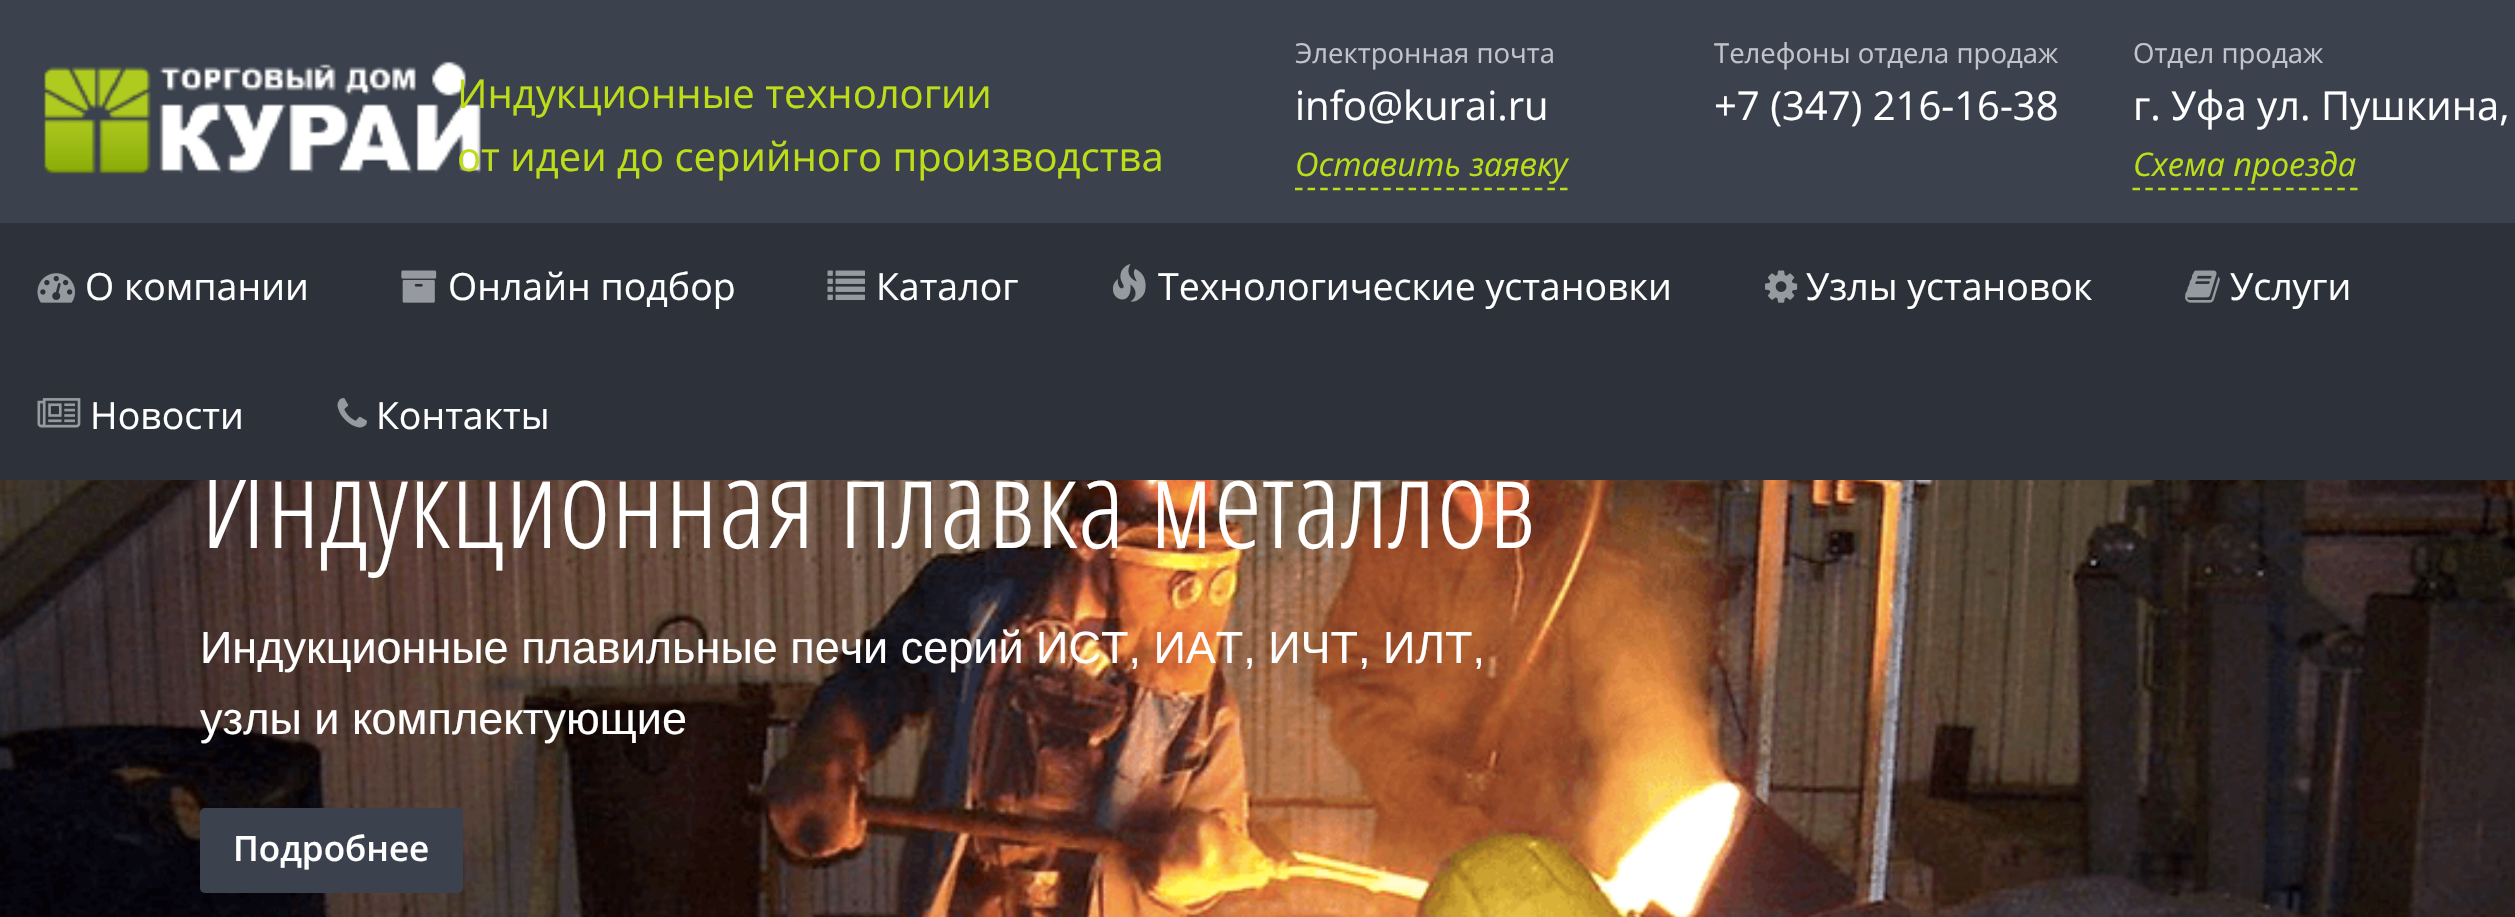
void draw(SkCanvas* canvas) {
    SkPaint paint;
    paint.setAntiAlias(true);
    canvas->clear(0xFFFFFFFF);
    paint.setColor(0xFF3B424E);
    canvas->drawRect(SkRect::MakeXYWH(0, 0, 2515, 223), paint);
    canvas->drawImageRect(SkImages::DeferredFromEncodedData(SkData::MakeFromFileName("img1.png")), SkRect::MakeXYWH(44, 61, 437, 113), SkSamplingOptions());
    SkFont font1(fontMgr->matchFamilyStyle("Open Sans", SkFontStyle::Normal()), 40);
    font1.setSubpixel(true);
    paint.setColor(0xFFBEDD19);
    canvas->drawString("Индукционные технологии", 457, 108, font1, paint);
    canvas->drawString("от идеи до серийного производства", 457, 171, font1, paint);
    SkFont font2(fontMgr->matchFamilyStyle("Open Sans", SkFontStyle::Normal()), 27.5f);
    font2.setSubpixel(true);
    paint.setColor(0xFFC1C5CB);
    canvas->drawString("Электронная почта", 1295, 63, font2, paint);
    paint.setColor(0xFFFFFFFF);
    canvas->drawString("info@kurai.ru", 1295, 120, font1, paint);
    SkFont font3(fontMgr->matchFamilyStyle("Open Sans", SkFontStyle::Italic()), 32.5f);
    font3.setSubpixel(true);
    paint.setColor(0xFFBEDD19);
    canvas->drawString("Оставить заявку", 1295, 176, font3, paint);
    paint.setStyle(SkPaint::kStroke_Style);
    paint.setStrokeWidth(2.5f);
    paint.setPathEffect(SkDashPathEffect::Make({{7.5f, 5.12f}}, 0));
    canvas->drawPath(SkPathBuilder().moveTo(1295, 189).lineTo(1567.5f, 189).detach(), paint);
    paint.setPathEffect(nullptr);
    paint.setStyle(SkPaint::kFill_Style);
    paint.setColor(0xFFC1C5CB);
    canvas->drawString("Телефоны отдела продаж", 1714, 63, font2, paint);
    paint.setColor(0xFFFFFFFF);
    canvas->drawString("+7 (347) 216-16-38", 1714, 120, font1, paint);
    paint.setColor(0xFFC1C5CB);
    canvas->drawString("Отдел продаж", 2133, 63, font2, paint);
    paint.setColor(0xFFFFFFFF);
    canvas->drawString("г. Уфа ул. Пушкина,", 2133, 120, font1, paint);
    paint.setColor(0xFFBEDD19);
    canvas->drawString("Схема проезда", 2133, 176, font3, paint);
    paint.setStyle(SkPaint::kStroke_Style);
    paint.setPathEffect(SkDashPathEffect::Make({{7.5f, 5.3f}}, 0));
    canvas->drawPath(SkPathBuilder().moveTo(2132.5f, 189).lineTo(2357.5f, 189).detach(), paint);
    paint.setPathEffect(nullptr);
    canvas->drawImageRect(SkImages::DeferredFromEncodedData(SkData::MakeFromFileName("img10.png")), SkRect::MakeXYWH(0, 480, 2515, 437), SkSamplingOptions());
    SkFont font4(fontMgr->matchFamilyStyle("Open Sans Condensed", SkFontStyle(300, SkFontStyle::kNormal_Width, SkFontStyle::kUpright_Slant)), 125);
    font4.setSubpixel(true);
    paint.setStyle(SkPaint::kFill_Style);
    paint.setColor(0xFFFFFFFF);
    canvas->drawString("Индукционная плавка металлов", 200, 548, font4, paint);
    paint.setColor(0xFF2C313A);
    canvas->drawRect(SkRect::MakeXYWH(0, 223, 2515, 257), paint);
    canvas->drawImageRect(SkImages::DeferredFromEncodedData(SkData::MakeFromFileName("img2.png")), SkRect::MakeXYWH(37, 273, 38, 30), SkSamplingOptions());
    SkFont font5(fontMgr->matchFamilyStyle("Open Sans", SkFontStyle::Normal()), 37.5f);
    font5.setSubpixel(true);
    paint.setColor(0xFFFFFFFF);
    canvas->drawString("О компании", 85, 300, font5, paint);
    canvas->drawImageRect(SkImages::DeferredFromEncodedData(SkData::MakeFromFileName("img3.png")), SkRect::MakeXYWH(401, 270, 36, 33), SkSamplingOptions());
    canvas->drawString("Онлайн подбор", 448, 300, font5, paint);
    canvas->drawImageRect(SkImages::DeferredFromEncodedData(SkData::MakeFromFileName("img4.png")), SkRect::MakeXYWH(827, 270, 38, 30), SkSamplingOptions());
    canvas->drawString("Каталог", 876, 300, font5, paint);
    canvas->drawImageRect(SkImages::DeferredFromEncodedData(SkData::MakeFromFileName("img5.png")), SkRect::MakeXYWH(1113, 264, 33, 38), SkSamplingOptions());
    canvas->drawString("Технологические установки", 1158, 300, font5, paint);
    canvas->drawImageRect(SkImages::DeferredFromEncodedData(SkData::MakeFromFileName("img6.png")), SkRect::MakeXYWH(1765, 270, 33, 33), SkSamplingOptions());
    canvas->drawString("Узлы установок", 1806, 300, font5, paint);
    canvas->drawImageRect(SkImages::DeferredFromEncodedData(SkData::MakeFromFileName("img7.png")), SkRect::MakeXYWH(2185, 270, 35, 33), SkSamplingOptions());
    canvas->drawString("Услуги", 2230, 300, font5, paint);
    canvas->drawImageRect(SkImages::DeferredFromEncodedData(SkData::MakeFromFileName("img8.png")), SkRect::MakeXYWH(37, 398, 44, 30), SkSamplingOptions());
    canvas->drawString("Новости", 90, 429, font5, paint);
    canvas->drawImageRect(SkImages::DeferredFromEncodedData(SkData::MakeFromFileName("img9.png")), SkRect::MakeXYWH(337, 398, 30, 30), SkSamplingOptions());
    canvas->drawString("Контакты", 376, 429, font5, paint);
    SkFont font6(fontMgr->matchFamilyStyle("Liberation Sans", SkFontStyle::Normal()), 45);
    font6.setSubpixel(true);
    canvas->drawString("Индукционные плавильные печи серий ИСТ, ИАТ, ИЧТ, ИЛТ,", 200, 663, font6, paint);
    canvas->drawString("узлы и комплектующие", 200, 734, font6, paint);
    paint.setColor(0xFF3B424E);
    canvas->drawRoundRect(SkRect::MakeXYWH(201.5f, 809.5f, 260, 82), 3.5f, 3.5f, paint);
    paint.setStyle(SkPaint::kStroke_Style);
    paint.setStrokeWidth(3);
    canvas->drawRoundRect(SkRect::MakeXYWH(201.5f, 809.5f, 260, 82), 3.5f, 3.5f, paint);
    SkFont font7(fontMgr->matchFamilyStyle("Open Sans", SkFontStyle(600, SkFontStyle::kNormal_Width, SkFontStyle::kUpright_Slant)), 35);
    font7.setSubpixel(true);
    paint.setStyle(SkPaint::kFill_Style);
    paint.setColor(0xFFFFFFFF);
    canvas->drawString("Подробнее", 233, 861, font7, paint);
}
